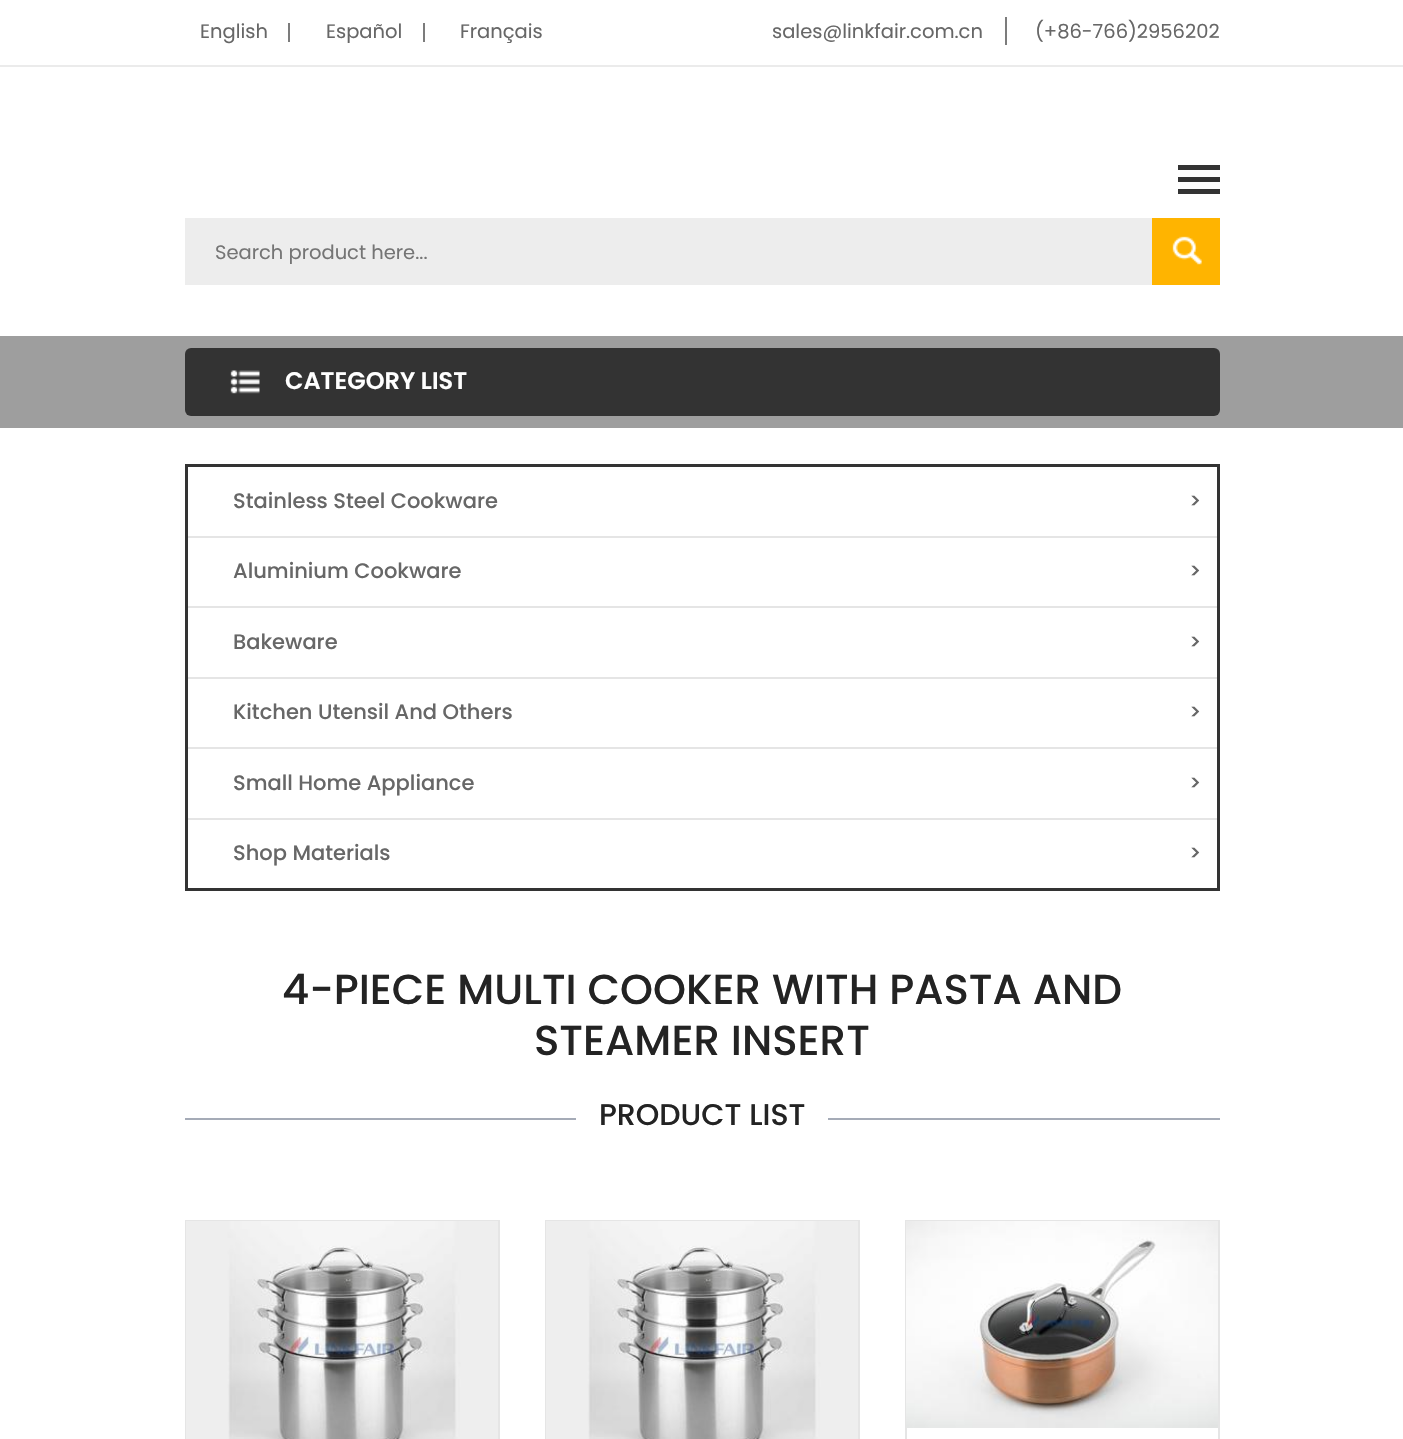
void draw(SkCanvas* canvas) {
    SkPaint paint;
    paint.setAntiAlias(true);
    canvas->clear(0xFFFFFFFF);
    paint.setColor(0xFFEBEBEB);
    canvas->drawRect(SkRect::MakeXYWH(0, 65, 1403, 2), paint);
    SkFont font1(fontMgr->matchFamilyStyle("Poppins", SkFontStyle::Normal()), 19.5f);
    font1.setSubpixel(true);
    paint.setColor(0xFF676767);
    canvas->drawString("English", 200, 38, font1, paint);
    paint.setColor(0xFF7C7C7C);
    canvas->drawRect(SkRect::MakeXYWH(288, 23, 2, 19), paint);
    paint.setColor(0xFF676767);
    canvas->drawString("Español", 326, 38, font1, paint);
    paint.setColor(0xFF7C7C7C);
    canvas->drawRect(SkRect::MakeXYWH(423, 23, 2, 19), paint);
    paint.setColor(0xFF676767);
    canvas->drawString("Français", 460, 38, font1, paint);
    canvas->drawString("sales@linkfair.com.cn", 772, 38, font1, paint);
    paint.setColor(0xFF7C7C7C);
    canvas->drawRect(SkRect::MakeXYWH(1005, 17, 2, 28), paint);
    paint.setColor(0xFF676767);
    canvas->drawString("(+86-766)2956202", 1035, 38, font1, paint);
    paint.setColor(0xFF333333);
    canvas->drawRect(SkRect::MakeXYWH(1178, 165, 42, 5), paint);
    canvas->drawRect(SkRect::MakeXYWH(1178, 177, 42, 5), paint);
    canvas->drawRect(SkRect::MakeXYWH(1178, 189, 42, 5), paint);
    paint.setColor(0xFFEDEDED);
    canvas->drawRect(SkRect::MakeXYWH(185, 218, 967, 67), paint);
    paint.setColor(0xFF757575);
    canvas->drawString("Search product here...", 215, 259, font1, paint);
    paint.setColor(0xFFFFB400);
    canvas->drawRect(SkRect::MakeXYWH(1152, 218, 68, 67), paint);
    canvas->drawImageRect(SkImages::DeferredFromEncodedData(SkData::MakeFromFileName("img1.png")), SkRect::MakeXYWH(1172, 236, 30, 29), SkSamplingOptions());
    paint.setColor(0xFF9E9E9E);
    canvas->drawRect(SkRect::MakeXYWH(0, 336, 1403, 92), paint);
    paint.setColor(0xFF333333);
    canvas->drawRoundRect(SkRect::MakeXYWH(185, 348, 1035, 68), 6, 6, paint);
    canvas->drawImageRect(SkImages::DeferredFromEncodedData(SkData::MakeFromFileName("img2.png")), SkRect::MakeXYWH(230, 370, 30, 24), SkSamplingOptions());
    SkFont font2(fontMgr->matchFamilyStyle("Poppins", SkFontStyle(600, SkFontStyle::kNormal_Width, SkFontStyle::kUpright_Slant)), 24);
    font2.setSubpixel(true);
    paint.setColor(0xFFFFFFFF);
    canvas->drawString("CATEGORY LIST", 285, 389, font2, paint);
    paint.setStyle(SkPaint::kStroke_Style);
    paint.setStrokeWidth(3);
    paint.setColor(0xFF333333);
    canvas->drawRect(SkRect::MakeXYWH(186.5f, 465.5f, 1032, 424), paint);
    paint.setStyle(SkPaint::kFill_Style);
    paint.setColor(0xFFE5E5E5);
    canvas->drawRect(SkRect::MakeXYWH(188, 536, 1029, 2), paint);
    SkFont font3(fontMgr->matchFamilyStyle("Poppins", SkFontStyle(500, SkFontStyle::kNormal_Width, SkFontStyle::kUpright_Slant)), 21);
    font3.setSubpixel(true);
    paint.setColor(0xFF676767);
    canvas->drawString("Stainless Steel Cookware", 233, 508, font3, paint);
    canvas->drawString(">", 1189, 508, font3, paint);
    paint.setColor(0xFFE5E5E5);
    canvas->drawRect(SkRect::MakeXYWH(188, 606, 1029, 2), paint);
    paint.setColor(0xFF676767);
    canvas->drawString("Aluminium Cookware", 233, 578, font3, paint);
    canvas->drawString(">", 1189, 578, font3, paint);
    paint.setColor(0xFFE5E5E5);
    canvas->drawRect(SkRect::MakeXYWH(188, 677, 1029, 2), paint);
    paint.setColor(0xFF676767);
    canvas->drawString("Bakeware", 233, 649, font3, paint);
    canvas->drawString(">", 1189, 649, font3, paint);
    paint.setColor(0xFFE5E5E5);
    canvas->drawRect(SkRect::MakeXYWH(188, 747, 1029, 2), paint);
    paint.setColor(0xFF676767);
    canvas->drawString("Kitchen Utensil And Others", 233, 719, font3, paint);
    canvas->drawString(">", 1189, 719, font3, paint);
    paint.setColor(0xFFE5E5E5);
    canvas->drawRect(SkRect::MakeXYWH(188, 818, 1029, 2), paint);
    paint.setColor(0xFF676767);
    canvas->drawString("Small Home Appliance", 233, 790, font3, paint);
    canvas->drawString(">", 1189, 790, font3, paint);
    canvas->drawString("Shop Materials", 233, 860, font3, paint);
    canvas->drawString(">", 1189, 860, font3, paint);
    SkFont font4(fontMgr->matchFamilyStyle("Poppins", SkFontStyle(500, SkFontStyle::kNormal_Width, SkFontStyle::kUpright_Slant)), 42);
    font4.setSubpixel(true);
    paint.setColor(0xFF232323);
    canvas->drawString("4-PIECE MULTI COOKER WITH PASTA AND", 282, 1004, font4, paint);
    canvas->drawString("STEAMER INSERT", 534, 1055, font4, paint);
    paint.setColor(0xFFA5ABB7);
    canvas->drawRect(SkRect::MakeXYWH(185, 1118, 391, 2), paint);
    SkFont font5(fontMgr->matchFamilyStyle("Poppins", SkFontStyle(500, SkFontStyle::kNormal_Width, SkFontStyle::kUpright_Slant)), 30);
    font5.setSubpixel(true);
    paint.setColor(0xFF232323);
    canvas->drawString("PRODUCT LIST", 599, 1125, font5, paint);
    paint.setColor(0xFFA5ABB7);
    canvas->drawRect(SkRect::MakeXYWH(828, 1118, 392, 2), paint);
    paint.setStyle(SkPaint::kStroke_Style);
    paint.setStrokeWidth(2);
    paint.setColor(0xFFE5E5E5);
    canvas->drawRect(SkRect::MakeXYWH(186, 1221, 313, 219), paint);
    canvas->drawImageRect(SkImages::DeferredFromEncodedData(SkData::MakeFromFileName("img3.png")), SkRect::MakeXYWH(186, 1221, 312, 218), SkSamplingOptions());
    canvas->drawRect(SkRect::MakeXYWH(546, 1221, 313, 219), paint);
    canvas->drawImageRect(SkImages::DeferredFromEncodedData(SkData::MakeFromFileName("img3.png")), SkRect::MakeXYWH(546, 1221, 312, 218), SkSamplingOptions());
    canvas->drawRect(SkRect::MakeXYWH(906, 1221, 313, 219), paint);
    canvas->drawImageRect(SkImages::DeferredFromEncodedData(SkData::MakeFromFileName("img4.png")), SkRect::MakeXYWH(906, 1221, 312, 207), SkSamplingOptions());
}
